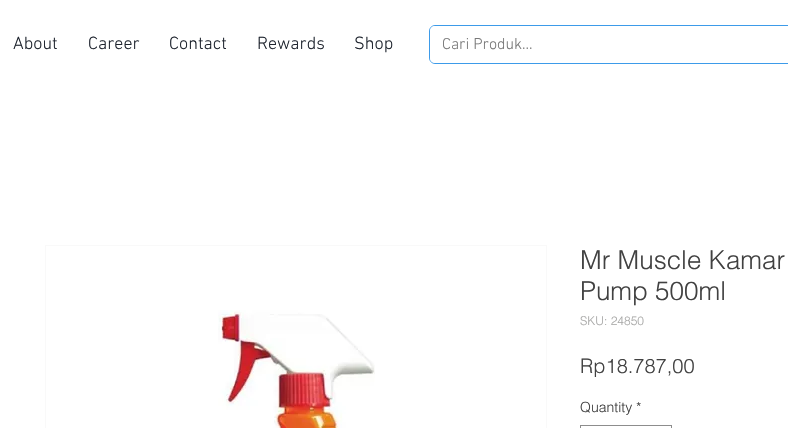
void draw(SkCanvas* canvas) {
    SkPaint paint;
    paint.setAntiAlias(true);
    canvas->clear(0xFFFFFFFF);
    SkFont font1(fontMgr->matchFamilyStyle("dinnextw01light", SkFontStyle(300, SkFontStyle::kNormal_Width, SkFontStyle::kUpright_Slant)), 18);
    font1.setSubpixel(true);
    paint.setColor(0xFF1E242E);
    canvas->drawString("About", 13, 49, font1, paint);
    canvas->drawString("Career", 88, 49, font1, paint);
    canvas->drawString("Contact", 169, 49, font1, paint);
    canvas->drawString("Rewards", 257, 49, font1, paint);
    canvas->drawString("Shop", 354, 49, font1, paint);
    paint.setStyle(SkPaint::kStroke_Style);
    paint.setStrokeWidth(1);
    paint.setColor(0xFF3D9BE9);
    canvas->drawRoundRect(SkRect::MakeXYWH(429.5f, 25.5f, 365, 38), 5.5f, 5.5f, paint);
    paint.setStyle(SkPaint::kFill_Style);
    paint.setColor(0xFFFFFFFF);
    canvas->drawRoundRect(SkRect::MakeXYWH(430, 26, 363, 37), 5, 5, paint);
    SkFont font2(fontMgr->matchFamilyStyle("dinnextw01light", SkFontStyle(300, SkFontStyle::kNormal_Width, SkFontStyle::kUpright_Slant)), 16);
    font2.setSubpixel(true);
    paint.setColor(0xFF787878);
    canvas->drawString("Cari Produk...", 442, 49, font2, paint);
    paint.setStyle(SkPaint::kStroke_Style);
    paint.setColor(0xFFF9F9F9);
    canvas->drawRect(SkRect::MakeXYWH(45.5f, 245.5f, 501, 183), paint);
    canvas->drawImageRect(SkImages::DeferredFromEncodedData(SkData::MakeFromFileName("img1.png")), SkRect::MakeXYWH(218, 310, 157, 118), SkSamplingOptions());
    SkFont font3(fontMgr->matchFamilyStyle("helvetica", SkFontStyle(300, SkFontStyle::kNormal_Width, SkFontStyle::kUpright_Slant)), 26);
    font3.setSubpixel(true);
    paint.setStyle(SkPaint::kFill_Style);
    paint.setColor(0xFF414141);
    canvas->drawString("Mr Muscle Kamar", 580, 269, font3, paint);
    canvas->drawString("Pump 500ml", 580, 300, font3, paint);
    SkFont font4(fontMgr->matchFamilyStyle("helvetica", SkFontStyle(300, SkFontStyle::kNormal_Width, SkFontStyle::kUpright_Slant)), 12);
    font4.setSubpixel(true);
    paint.setColor(0xFFA8A8A7);
    canvas->drawString("SKU: 24850", 580, 325, font4, paint);
    SkFont font5(fontMgr->matchFamilyStyle("helvetica", SkFontStyle(300, SkFontStyle::kNormal_Width, SkFontStyle::kUpright_Slant)), 20);
    font5.setSubpixel(true);
    paint.setColor(0xFF414141);
    canvas->drawString("Rp18.787,00", 580, 373, font5, paint);
    SkFont font6(fontMgr->matchFamilyStyle("helvetica", SkFontStyle(300, SkFontStyle::kNormal_Width, SkFontStyle::kUpright_Slant)), 14);
    font6.setSubpixel(true);
    canvas->drawString("Quantity *", 580, 412, font6, paint);
    paint.setStyle(SkPaint::kStroke_Style);
    paint.setColor(0xFF8D8D8D);
    canvas->drawRect(SkRect::MakeXYWH(580.5f, 425.5f, 91, 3), paint);
}
